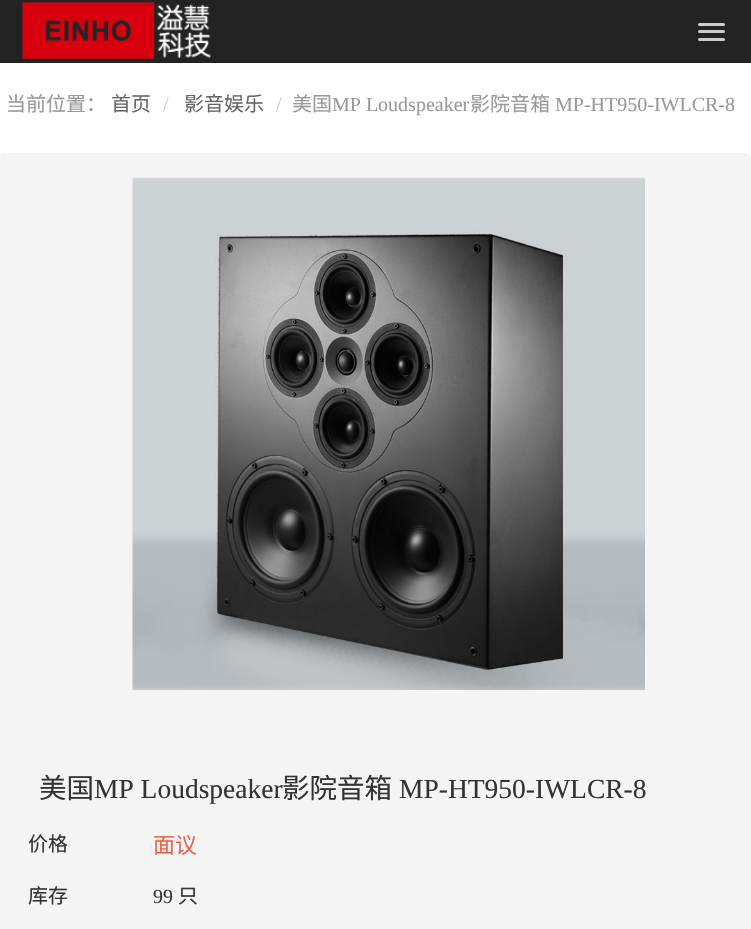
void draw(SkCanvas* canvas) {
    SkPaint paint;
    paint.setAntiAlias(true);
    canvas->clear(0xFF232323);
    canvas->drawImageRect(SkImages::DeferredFromEncodedData(SkData::MakeFromFileName("img1.png")), SkRect::MakeXYWH(22, 2, 189, 57), SkSamplingOptions());
    paint.setColor(0xFFCCCCCC);
    canvas->drawRoundRect(SkRect::MakeXYWH(698, 23, 27, 3), 1.5f, 1.5f, paint);
    canvas->drawRoundRect(SkRect::MakeXYWH(698, 30, 27, 3), 1.5f, 1.5f, paint);
    canvas->drawRoundRect(SkRect::MakeXYWH(698, 38, 27, 3), 1.5f, 1.5f, paint);
    paint.setColor(0xFFFFFFFF);
    canvas->drawRect(SkRect::MakeXYWH(0, 63, 751, 95), paint);
    SkFont font1(fontMgr->matchFamilyStyle("Noto Sans CJK SC", SkFontStyle::Normal()), 20);
    font1.setSubpixel(true);
    paint.setColor(0xFF999999);
    canvas->drawString("当前位置：", 6, 111, font1, paint);
    paint.setColor(0xFF666666);
    canvas->drawString("首页", 111, 111, font1, paint);
    SkFont font2(fontMgr->matchFamilyStyle("Liberation Serif", SkFontStyle::Normal()), 20);
    font2.setSubpixel(true);
    paint.setColor(0xFFCCCCCC);
    canvas->drawString("/", 163, 111, font2, paint);
    paint.setColor(0xFF666666);
    canvas->drawString("影音娱乐", 184, 111, font1, paint);
    paint.setColor(0xFFCCCCCC);
    canvas->drawString("/", 276, 111, font2, paint);
    paint.setColor(0xFF999999);
    canvas->drawString("美国", 292, 111, font1, paint);
    canvas->drawString("MP Loudspeaker", 332, 111, font2, paint);
    canvas->drawString("影院音箱", 470, 111, font1, paint);
    canvas->drawString("MP-HT950-IWLCR-8", 555, 111, font2, paint);
    paint.setColor(0xFFF4F4F4);
    canvas->drawRoundRect(SkRect::MakeXYWH(0, 153, 751, 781), 5, 5, paint);
    canvas->drawImageRect(SkImages::DeferredFromEncodedData(SkData::MakeFromFileName("img2.png")), SkRect::MakeXYWH(132, 177, 513, 513), SkSamplingOptions());
    SkFont font3(fontMgr->matchFamilyStyle("Noto Sans CJK SC", SkFontStyle::Normal()), 27.5f);
    font3.setSubpixel(true);
    paint.setColor(0xFF333333);
    canvas->drawString("美国", 39, 798, font3, paint);
    SkFont font4(fontMgr->matchFamilyStyle("Liberation Serif", SkFontStyle::Normal()), 27.5f);
    font4.setSubpixel(true);
    canvas->drawString("MP Loudspeaker", 94, 798, font4, paint);
    canvas->drawString("影院音箱", 282, 798, font3, paint);
    canvas->drawString("MP-HT950-IWLCR-8", 399, 798, font4, paint);
    canvas->drawString("价格", 28, 851, font1, paint);
    SkFont font5(fontMgr->matchFamilyStyle("Noto Sans CJK SC", SkFontStyle::Normal()), 22);
    font5.setSubpixel(true);
    paint.setColor(0xFFEA644A);
    canvas->drawString("面议", 153, 853, font5, paint);
    paint.setColor(0xFF333333);
    canvas->drawString("库存", 28, 903, font1, paint);
    canvas->drawString("99", 153, 903, font2, paint);
    canvas->drawString("只", 178, 903, font1, paint);
}
